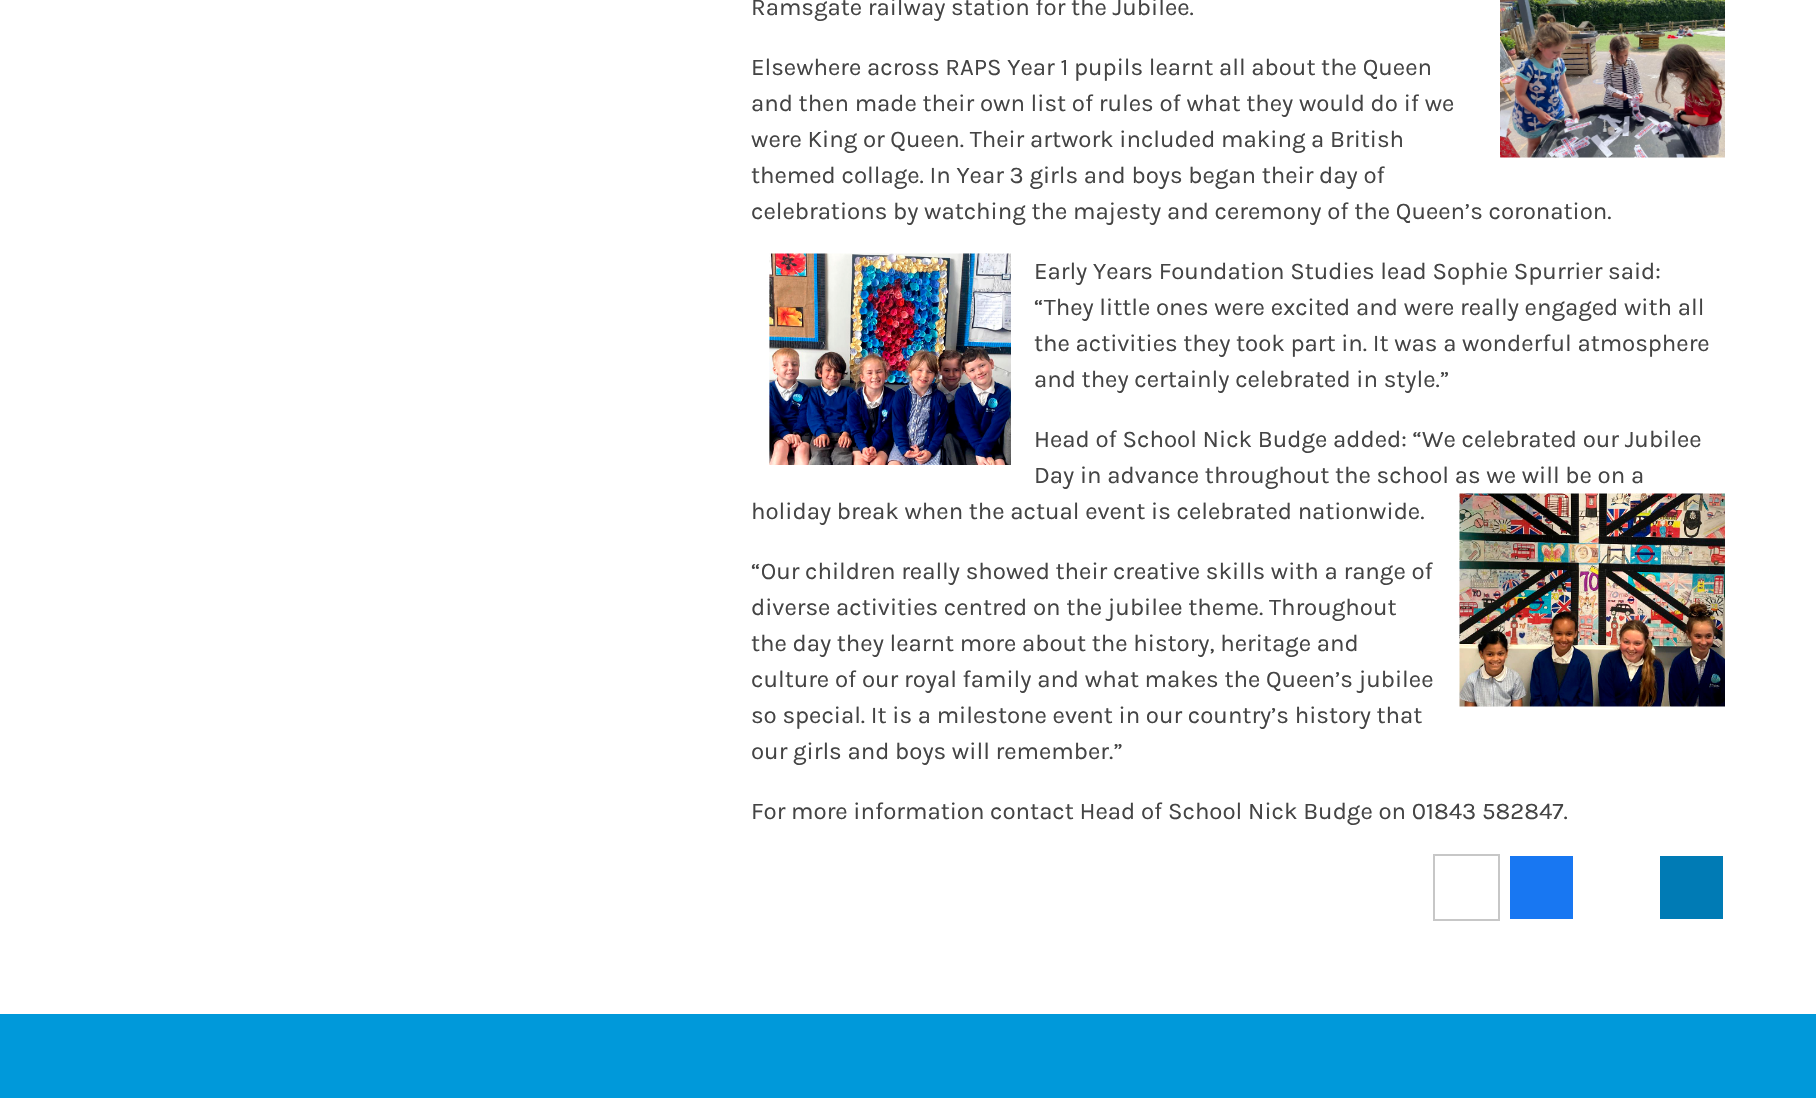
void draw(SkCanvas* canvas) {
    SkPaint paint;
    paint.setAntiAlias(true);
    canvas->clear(0xFFFFFFFF);
    SkFont font1(fontMgr->matchFamilyStyle("Karla", SkFontStyle::Normal()), 24);
    font1.setSubpixel(true);
    paint.setColor(0xFF444444);
    canvas->drawString("Ramsgate railway station for the Jubilee.", 751, 15, font1, paint);
    canvas->drawImageRect(SkImages::DeferredFromEncodedData(SkData::MakeFromFileName("img1.png")), SkRect::MakeXYWH(1500, 0, 225, 158), SkSamplingOptions());
    canvas->drawString("Elsewhere across RAPS Year 1 pupils learnt all about the Queen", 751, 75, font1, paint);
    canvas->drawString("and then made their own list of rules of what they would do if we", 751, 111, font1, paint);
    canvas->drawString("were King or Queen. Their artwork included making a British", 751, 147, font1, paint);
    canvas->drawString("themed collage. In Year 3 girls and boys began their day of", 751, 183, font1, paint);
    canvas->drawString("celebrations by watching the majesty and ceremony of the Queen’s coronation.", 751, 219, font1, paint);
    canvas->drawImageRect(SkImages::DeferredFromEncodedData(SkData::MakeFromFileName("img2.png")), SkRect::MakeXYWH(769, 253, 242, 212), SkSamplingOptions());
    canvas->drawString("Early Years Foundation Studies lead Sophie Spurrier said:", 1034, 279, font1, paint);
    canvas->drawString("“They little ones were excited and were really engaged with all", 1034, 315, font1, paint);
    canvas->drawString("the activities they took part in. It was a wonderful atmosphere", 1034, 351, font1, paint);
    canvas->drawString("and they certainly celebrated in style.”", 1034, 387, font1, paint);
    canvas->drawString("Head of School Nick Budge added: “We celebrated our Jubilee", 1034, 447, font1, paint);
    canvas->drawString("Day in advance throughout the school as we will be on a", 1034, 483, font1, paint);
    canvas->drawString("holiday break when the actual event is celebrated nationwide.", 751, 519, font1, paint);
    canvas->drawImageRect(SkImages::DeferredFromEncodedData(SkData::MakeFromFileName("img3.png")), SkRect::MakeXYWH(1459, 493, 266, 214), SkSamplingOptions());
    canvas->drawString("“Our children really showed their creative skills with a range of", 751, 579, font1, paint);
    canvas->drawString("diverse activities centred on the jubilee theme. Throughout", 751, 615, font1, paint);
    canvas->drawString("the day they learnt more about the history, heritage and", 751, 651, font1, paint);
    canvas->drawString("culture of our royal family and what makes the Queen’s jubilee", 751, 687, font1, paint);
    canvas->drawString("so special. It is a milestone event in our country’s history that", 751, 723, font1, paint);
    canvas->drawString("our girls and boys will remember.”", 751, 759, font1, paint);
    canvas->drawString("For more information contact Head of School Nick Budge on 01843 582847.", 751, 819, font1, paint);
    paint.setStyle(SkPaint::kStroke_Style);
    paint.setStrokeWidth(2);
    paint.setColor(0xFFC7C7C7);
    canvas->drawRect(SkRect::MakeXYWH(1434, 855, 65, 65), paint);
    paint.setStyle(SkPaint::kFill_Style);
    paint.setColor(0xFF1877F2);
    canvas->drawRect(SkRect::MakeXYWH(1510, 856, 63, 63), paint);
    paint.setColor(0xFF007BB5);
    canvas->drawRect(SkRect::MakeXYWH(1660, 856, 63, 63), paint);
    paint.setColor(0xFF0099DA);
    canvas->drawRect(SkRect::MakeXYWH(0, 1014, 1816, 84), paint);
}
